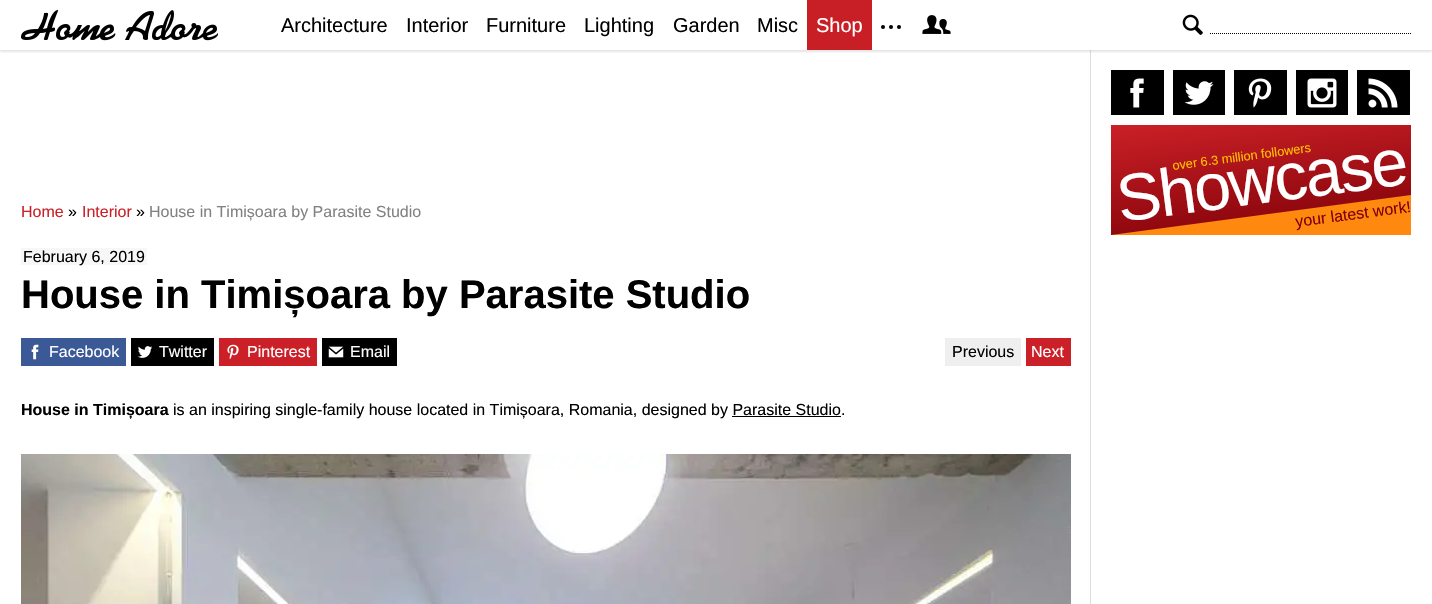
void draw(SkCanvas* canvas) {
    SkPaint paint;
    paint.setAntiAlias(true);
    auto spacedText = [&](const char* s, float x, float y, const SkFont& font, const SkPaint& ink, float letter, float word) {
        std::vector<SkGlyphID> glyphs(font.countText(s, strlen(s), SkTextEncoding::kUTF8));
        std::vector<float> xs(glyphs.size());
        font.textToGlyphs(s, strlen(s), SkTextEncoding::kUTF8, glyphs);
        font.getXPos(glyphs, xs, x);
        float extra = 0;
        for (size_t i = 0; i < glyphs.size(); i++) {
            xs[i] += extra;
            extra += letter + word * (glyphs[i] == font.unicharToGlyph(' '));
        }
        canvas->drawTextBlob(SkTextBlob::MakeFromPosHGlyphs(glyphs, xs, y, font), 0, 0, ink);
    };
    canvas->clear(0xFFFFFFFF);
    paint.setColor(0xFFDDDDDD);
    canvas->drawRect(SkRect::MakeXYWH(1090, 50, 1, 554), paint);
    canvas->save();
    canvas->clipRect(SkRect::MakeXYWH(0, 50, 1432, 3));
    paint.setColor(0x1A000000);
    paint.setMaskFilter(SkMaskFilter::MakeBlur(kNormal_SkBlurStyle, 1));
    canvas->drawRect(SkRect::MakeXYWH(0, 2, 1432, 50), paint);
    paint.setMaskFilter(nullptr);
    canvas->restore();
    canvas->drawImageRect(SkImages::DeferredFromEncodedData(SkData::MakeFromFileName("img1.png")), SkRect::MakeXYWH(21, 10, 197, 31), SkSamplingOptions());
    SkFont font1(fontMgr->matchFamilyStyle("Liberation Sans", SkFontStyle::Normal()), 20);
    font1.setSubpixel(true);
    paint.setColor(0xFF000000);
    canvas->drawString("Architecture", 281, 32, font1, paint);
    canvas->drawString("Interior", 406, 32, font1, paint);
    canvas->drawString("Furniture", 486, 32, font1, paint);
    canvas->drawString("Lighting", 584, 32, font1, paint);
    canvas->drawString("Garden", 673, 32, font1, paint);
    canvas->drawString("Misc", 757, 32, font1, paint);
    paint.setColor(0xFFC81F26);
    canvas->drawRect(SkRect::MakeXYWH(807, 0, 65, 50), paint);
    paint.setColor(0xFFFFFFFF);
    canvas->drawString("Shop", 816, 32, font1, paint);
    paint.setColor(0xFF000000);
    canvas->drawCircle(883, 27, 2, paint);
    canvas->drawCircle(891, 27, 2, paint);
    canvas->drawCircle(899, 27, 2, paint);
    canvas->drawImageRect(SkImages::DeferredFromEncodedData(SkData::MakeFromFileName("img2.png")), SkRect::MakeXYWH(922, 15, 29, 19), SkSamplingOptions());
    canvas->drawImageRect(SkImages::DeferredFromEncodedData(SkData::MakeFromFileName("img3.png")), SkRect::MakeXYWH(1182, 14, 21, 21), SkSamplingOptions());
    paint.setStyle(SkPaint::kStroke_Style);
    paint.setStrokeWidth(1);
    paint.setPathEffect(SkDashPathEffect::Make({{1, 1}}, 0));
    canvas->drawPath(SkPathBuilder().moveTo(1210, 33.5f).lineTo(1411, 33.5f).detach(), paint);
    paint.setPathEffect(nullptr);
    paint.setStyle(SkPaint::kFill_Style);
    canvas->drawRect(SkRect::MakeXYWH(1111, 70, 53, 45), paint);
    canvas->drawImageRect(SkImages::DeferredFromEncodedData(SkData::MakeFromFileName("img4.png")), SkRect::MakeXYWH(1130, 78, 14, 30), SkSamplingOptions());
    canvas->drawRect(SkRect::MakeXYWH(1173, 70, 52, 45), paint);
    canvas->drawImageRect(SkImages::DeferredFromEncodedData(SkData::MakeFromFileName("img5.png")), SkRect::MakeXYWH(1184, 81, 30, 24), SkSamplingOptions());
    canvas->drawRect(SkRect::MakeXYWH(1234, 70, 53, 45), paint);
    canvas->drawImageRect(SkImages::DeferredFromEncodedData(SkData::MakeFromFileName("img6.png")), SkRect::MakeXYWH(1248, 78, 24, 30), SkSamplingOptions());
    canvas->drawRect(SkRect::MakeXYWH(1296, 70, 52, 45), paint);
    canvas->drawImageRect(SkImages::DeferredFromEncodedData(SkData::MakeFromFileName("img7.png")), SkRect::MakeXYWH(1307, 78, 30, 30), SkSamplingOptions());
    canvas->drawRect(SkRect::MakeXYWH(1357, 70, 53, 45), paint);
    canvas->drawImageRect(SkImages::DeferredFromEncodedData(SkData::MakeFromFileName("img8.png")), SkRect::MakeXYWH(1368, 78, 30, 30), SkSamplingOptions());
    {
        const SkColor colors[] = {0xFFCB2027, 0xFF7C0006};
        const float stops[] = {0, 1};
        const SkPoint ends[] = {{1252, 108}, {1270, 252}};
        paint.setShader(SkGradientShader::MakeLinear(ends, colors, stops, 2, SkTileMode::kClamp));
        paint.setAlpha(255);
    }
    canvas->drawRect(SkRect::MakeXYWH(1111, 125, 300, 110), paint);
    SkFont font2(fontMgr->matchFamilyStyle("Liberation Sans", SkFontStyle::Normal()), 12.75f);
    font2.setSubpixel(true);
    paint.setShader(nullptr);
    paint.setColor(0xFFFFC000);
    canvas->save();
    canvas->rotate(-7.5f, 1173, 170);
    canvas->drawString("over 6.3 million followers", 1173, 170, font2, paint);
    canvas->restore();
    paint.setColor(0xFFFF880F);
    canvas->drawPath(SkPathBuilder().moveTo(1411, 235).lineTo(1111, 235).lineTo(1411, 195).close().detach(), paint);
    SkFont font3(fontMgr->matchFamilyStyle("Liberation Sans", SkFontStyle::Normal()), 66.5f);
    font3.setSubpixel(true);
    paint.setColor(0xFFFFFFFF);
    canvas->save();
    canvas->rotate(-7.5f, 1120, 222);
    spacedText("Showcase", 1120, 222, font3, paint, -2, 0);
    canvas->restore();
    SkFont font4(fontMgr->matchFamilyStyle("Liberation Sans", SkFontStyle::Normal()), 16);
    font4.setSubpixel(true);
    paint.setColor(0xFF7C0006);
    canvas->save();
    canvas->rotate(-7.5f, 1296, 227);
    canvas->drawString("your latest work!", 1296, 227, font4, paint);
    canvas->restore();
    paint.setColor(0xFFCB2027);
    canvas->drawString("Home", 21, 217, font4, paint);
    paint.setColor(0xFF000000);
    canvas->drawString("»", 68, 217, font4, paint);
    paint.setColor(0xFFCB2027);
    canvas->drawString("Interior", 82, 217, font4, paint);
    paint.setColor(0xFF000000);
    canvas->drawString("»", 136, 217, font4, paint);
    paint.setColor(0xFF828282);
    canvas->drawString("House in Timișoara by Parasite Studio", 149, 217, font4, paint);
    paint.setColor(0xFFF7F7F7);
    canvas->drawRect(SkRect::MakeXYWH(21, 248, 126, 17), paint);
    paint.setColor(0xFF000000);
    canvas->drawString("February 6, 2019", 23, 262, font4, paint);
    SkFont font5(fontMgr->matchFamilyStyle("Liberation Sans", SkFontStyle::Bold()), 40);
    font5.setSubpixel(true);
    canvas->drawString("House in Timișoara by Parasite Studio", 21, 308, font5, paint);
    paint.setColor(0xFF3B5997);
    canvas->drawRect(SkRect::MakeXYWH(21, 338, 105, 28), paint);
    canvas->drawImageRect(SkImages::DeferredFromEncodedData(SkData::MakeFromFileName("img9.png")), SkRect::MakeXYWH(31, 344, 8, 16), SkSamplingOptions());
    paint.setColor(0xFFFFFFFF);
    canvas->drawString("Facebook", 49, 357, font4, paint);
    paint.setColor(0xFF000000);
    canvas->drawRect(SkRect::MakeXYWH(131, 338, 83, 28), paint);
    canvas->drawImageRect(SkImages::DeferredFromEncodedData(SkData::MakeFromFileName("img10.png")), SkRect::MakeXYWH(138, 346, 15, 12), SkSamplingOptions());
    paint.setColor(0xFFFFFFFF);
    canvas->drawString("Twitter", 159, 357, font4, paint);
    paint.setColor(0xFFCB2027);
    canvas->drawRect(SkRect::MakeXYWH(219, 338, 98, 28), paint);
    canvas->drawImageRect(SkImages::DeferredFromEncodedData(SkData::MakeFromFileName("img11.png")), SkRect::MakeXYWH(227, 344, 12, 16), SkSamplingOptions());
    paint.setColor(0xFFFFFFFF);
    canvas->drawString("Pinterest", 247, 357, font4, paint);
    paint.setColor(0xFF000000);
    canvas->drawRect(SkRect::MakeXYWH(322, 338, 75, 28), paint);
    canvas->drawImageRect(SkImages::DeferredFromEncodedData(SkData::MakeFromFileName("img12.png")), SkRect::MakeXYWH(328, 346, 16, 12), SkSamplingOptions());
    paint.setColor(0xFFFFFFFF);
    canvas->drawString("Email", 350, 357, font4, paint);
    paint.setColor(0xFFEFEFEF);
    canvas->drawRect(SkRect::MakeXYWH(945, 338, 76, 28), paint);
    paint.setColor(0xFF000000);
    canvas->drawString("Previous", 952, 357, font4, paint);
    paint.setColor(0xFFCB2027);
    canvas->drawRect(SkRect::MakeXYWH(1026, 338, 45, 28), paint);
    paint.setColor(0xFFFFFFFF);
    canvas->drawString("Next", 1031, 357, font4, paint);
    SkFont font6(fontMgr->matchFamilyStyle("Liberation Sans", SkFontStyle::Bold()), 16);
    font6.setSubpixel(true);
    paint.setColor(0xFF000000);
    canvas->drawString("House in Timișoara", 21, 415, font6, paint);
    canvas->drawString("is an inspiring single-family house located in Timișoara, Romania, designed by Parasite Studio.", 173, 415, font4, paint);
    canvas->drawRect(SkRect::MakeXYWH(732, 416, 109, 1), paint);
    canvas->drawImageRect(SkImages::DeferredFromEncodedData(SkData::MakeFromFileName("img13.png")), SkRect::MakeXYWH(21, 454, 1050, 150), SkSamplingOptions());
}
